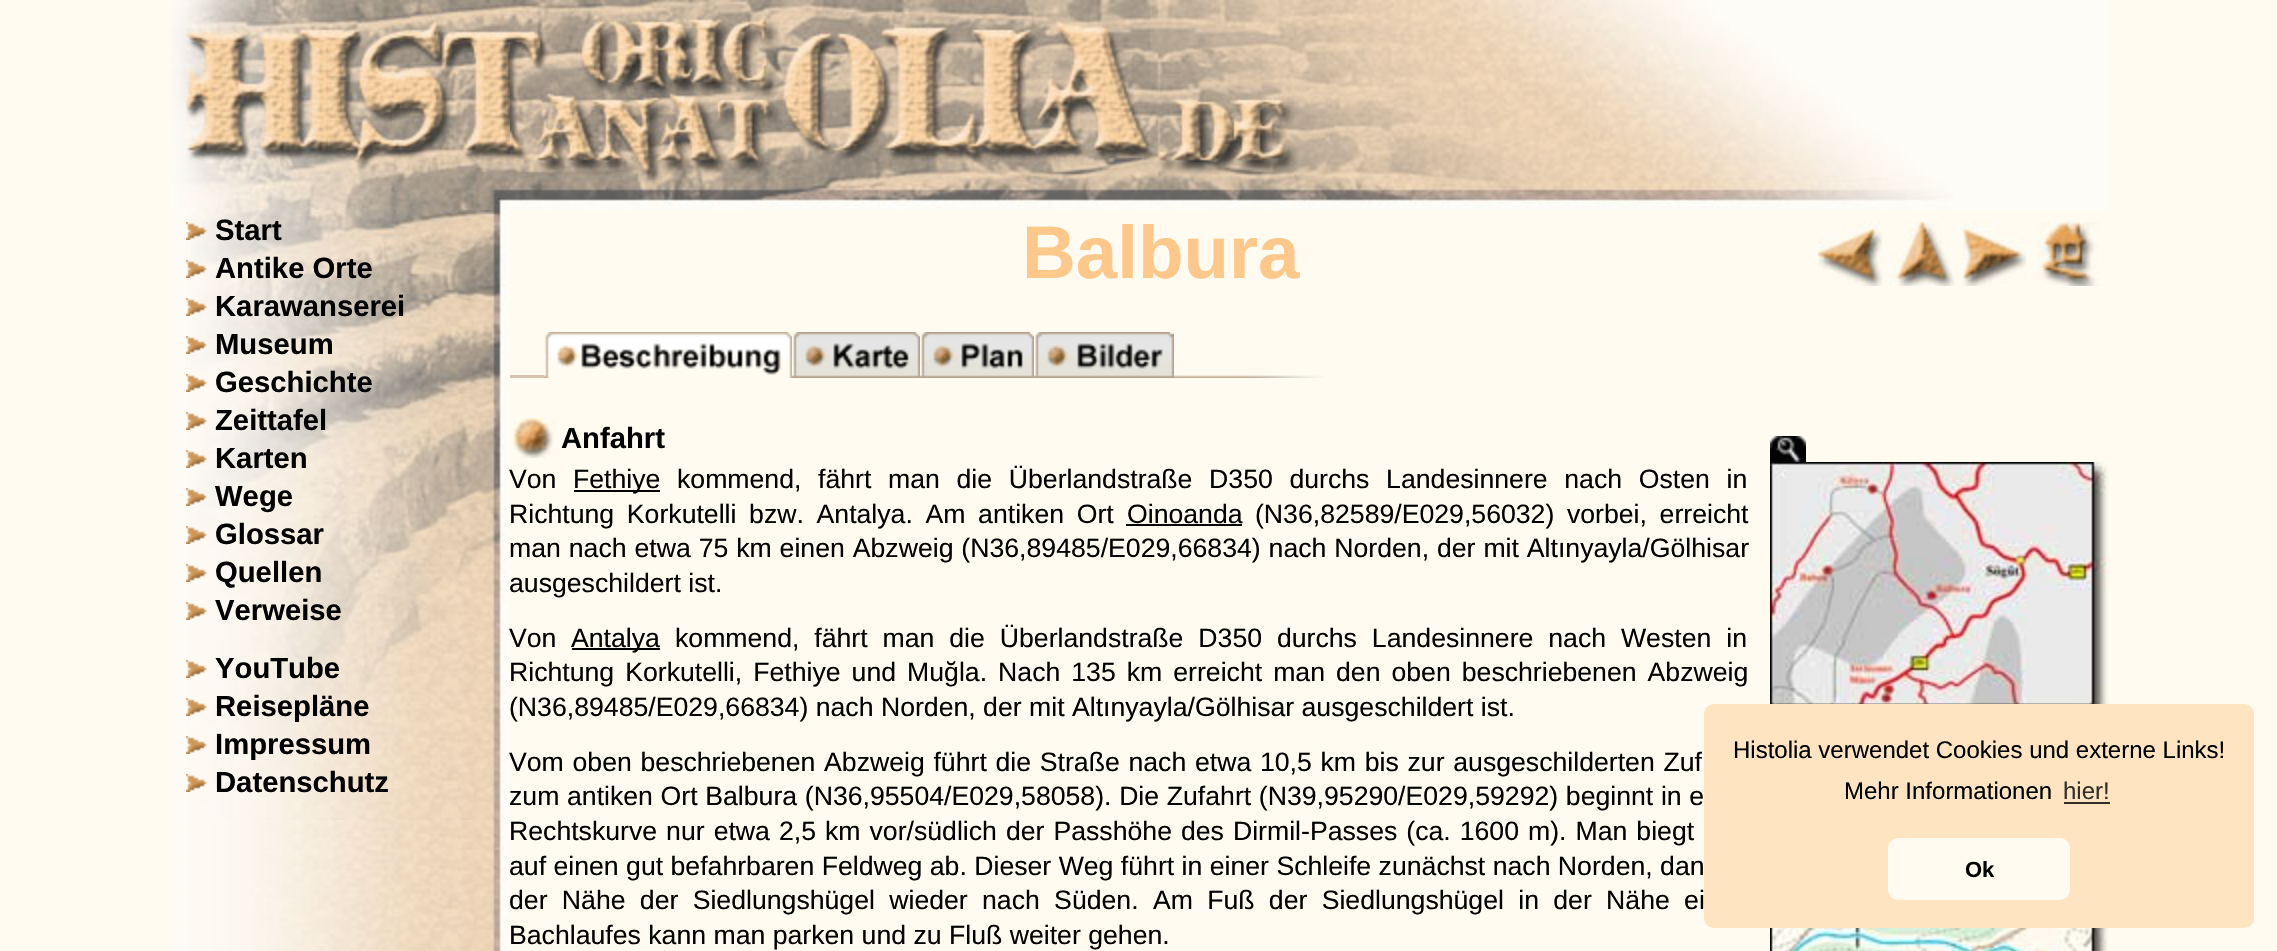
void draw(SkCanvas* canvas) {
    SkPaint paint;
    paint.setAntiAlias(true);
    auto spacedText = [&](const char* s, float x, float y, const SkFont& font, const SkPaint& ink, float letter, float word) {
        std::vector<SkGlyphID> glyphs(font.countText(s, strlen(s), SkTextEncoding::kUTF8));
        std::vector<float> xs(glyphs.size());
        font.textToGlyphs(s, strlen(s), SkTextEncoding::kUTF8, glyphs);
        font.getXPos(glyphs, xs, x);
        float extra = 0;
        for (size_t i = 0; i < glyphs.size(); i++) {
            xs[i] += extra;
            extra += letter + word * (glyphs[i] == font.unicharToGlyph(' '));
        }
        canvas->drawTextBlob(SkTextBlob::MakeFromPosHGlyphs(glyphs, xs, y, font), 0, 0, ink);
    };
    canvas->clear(0xFFFFFBF0);
    canvas->drawImageRect(SkImages::DeferredFromEncodedData(SkData::MakeFromFileName("img1.png")), SkRect::MakeXYWH(170, 0, 340, 210), SkSamplingOptions());
    canvas->drawImageRect(SkImages::DeferredFromEncodedData(SkData::MakeFromFileName("img2.png")), SkRect::MakeXYWH(510, 0, 820, 210), SkSamplingOptions());
    canvas->drawImageRect(SkImages::DeferredFromEncodedData(SkData::MakeFromFileName("img3.png")), SkRect::MakeXYWH(1330, 0, 780, 210), SkSamplingOptions());
    canvas->drawImageRect(SkImages::DeferredFromEncodedData(SkData::MakeFromFileName("img4.png")), SkRect::MakeXYWH(170, 210, 340, 741), SkSamplingOptions());
    canvas->drawImageRect(SkImages::DeferredFromEncodedData(SkData::MakeFromFileName("img5.png")), SkRect::MakeXYWH(191, 210, 315, 610), SkSamplingOptions());
    canvas->drawImageRect(SkImages::DeferredFromEncodedData(SkData::MakeFromFileName("img6.png")), SkRect::MakeXYWH(186, 222, 21, 18), SkSamplingOptions());
    SkFont font1(fontMgr->matchFamilyStyle("Liberation Sans", SkFontStyle::Bold()), 29.25f);
    font1.setSubpixel(true);
    paint.setColor(0xFF000000);
    canvas->drawString("Start", 215, 240, font1, paint);
    canvas->drawImageRect(SkImages::DeferredFromEncodedData(SkData::MakeFromFileName("img7.png")), SkRect::MakeXYWH(186, 260, 21, 18), SkSamplingOptions());
    canvas->drawString("Antike Orte", 215, 278, font1, paint);
    canvas->drawImageRect(SkImages::DeferredFromEncodedData(SkData::MakeFromFileName("img8.png")), SkRect::MakeXYWH(186, 298, 21, 18), SkSamplingOptions());
    canvas->drawString("Karawanserei", 215, 316, font1, paint);
    canvas->drawImageRect(SkImages::DeferredFromEncodedData(SkData::MakeFromFileName("img9.png")), SkRect::MakeXYWH(186, 336, 21, 18), SkSamplingOptions());
    canvas->drawString("Museum", 215, 354, font1, paint);
    canvas->drawImageRect(SkImages::DeferredFromEncodedData(SkData::MakeFromFileName("img10.png")), SkRect::MakeXYWH(186, 374, 21, 18), SkSamplingOptions());
    canvas->drawString("Geschichte", 215, 392, font1, paint);
    canvas->drawImageRect(SkImages::DeferredFromEncodedData(SkData::MakeFromFileName("img11.png")), SkRect::MakeXYWH(186, 412, 21, 18), SkSamplingOptions());
    canvas->drawString("Zeittafel", 215, 430, font1, paint);
    canvas->drawImageRect(SkImages::DeferredFromEncodedData(SkData::MakeFromFileName("img12.png")), SkRect::MakeXYWH(186, 450, 21, 18), SkSamplingOptions());
    canvas->drawString("Karten", 215, 468, font1, paint);
    canvas->drawImageRect(SkImages::DeferredFromEncodedData(SkData::MakeFromFileName("img13.png")), SkRect::MakeXYWH(186, 488, 21, 18), SkSamplingOptions());
    canvas->drawString("Wege", 215, 506, font1, paint);
    canvas->drawImageRect(SkImages::DeferredFromEncodedData(SkData::MakeFromFileName("img14.png")), SkRect::MakeXYWH(186, 526, 21, 18), SkSamplingOptions());
    canvas->drawString("Glossar", 215, 544, font1, paint);
    canvas->drawImageRect(SkImages::DeferredFromEncodedData(SkData::MakeFromFileName("img15.png")), SkRect::MakeXYWH(186, 564, 21, 18), SkSamplingOptions());
    canvas->drawString("Quellen", 215, 582, font1, paint);
    canvas->drawImageRect(SkImages::DeferredFromEncodedData(SkData::MakeFromFileName("img16.png")), SkRect::MakeXYWH(186, 602, 21, 18), SkSamplingOptions());
    canvas->drawString("Verweise", 215, 620, font1, paint);
    canvas->drawImageRect(SkImages::DeferredFromEncodedData(SkData::MakeFromFileName("img17.png")), SkRect::MakeXYWH(186, 660, 21, 18), SkSamplingOptions());
    canvas->drawString("YouTube", 215, 678, font1, paint);
    canvas->drawImageRect(SkImages::DeferredFromEncodedData(SkData::MakeFromFileName("img18.png")), SkRect::MakeXYWH(186, 698, 21, 18), SkSamplingOptions());
    canvas->drawString("Reisepläne", 215, 716, font1, paint);
    canvas->drawImageRect(SkImages::DeferredFromEncodedData(SkData::MakeFromFileName("img19.png")), SkRect::MakeXYWH(186, 736, 21, 18), SkSamplingOptions());
    canvas->drawString("Impressum", 215, 754, font1, paint);
    canvas->drawImageRect(SkImages::DeferredFromEncodedData(SkData::MakeFromFileName("img20.png")), SkRect::MakeXYWH(186, 774, 21, 18), SkSamplingOptions());
    canvas->drawString("Datenschutz", 215, 792, font1, paint);
    SkFont font2(fontMgr->matchFamilyStyle("Liberation Sans", SkFontStyle::Bold()), 74.5f);
    font2.setSubpixel(true);
    paint.setColor(0xFFFDC889);
    canvas->drawString("Balbura", 1022, 278, font2, paint);
    canvas->drawImageRect(SkImages::DeferredFromEncodedData(SkData::MakeFromFileName("img21.png")), SkRect::MakeXYWH(1818, 222, 64, 64), SkSamplingOptions());
    canvas->drawImageRect(SkImages::DeferredFromEncodedData(SkData::MakeFromFileName("img22.png")), SkRect::MakeXYWH(1890, 222, 64, 64), SkSamplingOptions());
    canvas->drawImageRect(SkImages::DeferredFromEncodedData(SkData::MakeFromFileName("img23.png")), SkRect::MakeXYWH(1962, 222, 64, 64), SkSamplingOptions());
    canvas->drawImageRect(SkImages::DeferredFromEncodedData(SkData::MakeFromFileName("img24.png")), SkRect::MakeXYWH(2038, 222, 62, 64), SkSamplingOptions());
    paint.setColor(0xFFD7C3AE);
    canvas->drawRect(SkRect::MakeXYWH(510, 375, 34, 3), paint);
    canvas->drawImageRect(SkImages::DeferredFromEncodedData(SkData::MakeFromFileName("img25.png")), SkRect::MakeXYWH(544, 332, 248, 46), SkSamplingOptions());
    canvas->drawImageRect(SkImages::DeferredFromEncodedData(SkData::MakeFromFileName("img26.png")), SkRect::MakeXYWH(792, 332, 128, 46), SkSamplingOptions());
    canvas->drawImageRect(SkImages::DeferredFromEncodedData(SkData::MakeFromFileName("img27.png")), SkRect::MakeXYWH(920, 332, 114, 46), SkSamplingOptions());
    canvas->drawImageRect(SkImages::DeferredFromEncodedData(SkData::MakeFromFileName("img28.png")), SkRect::MakeXYWH(1034, 332, 140, 46), SkSamplingOptions());
    canvas->drawImageRect(SkImages::DeferredFromEncodedData(SkData::MakeFromFileName("img29.png")), SkRect::MakeXYWH(1174, 375, 149, 3), SkSamplingOptions());
    canvas->drawImageRect(SkImages::DeferredFromEncodedData(SkData::MakeFromFileName("img30.png")), SkRect::MakeXYWH(514, 418, 40, 40), SkSamplingOptions());
    paint.setColor(0xFF000000);
    canvas->drawString("Anfahrt", 561, 448, font1, paint);
    canvas->drawImageRect(SkImages::DeferredFromEncodedData(SkData::MakeFromFileName("img31.png")), SkRect::MakeXYWH(1770, 436, 36, 26), SkSamplingOptions());
    SkFont font3(fontMgr->matchFamilyStyle("Liberation Sans", SkFontStyle::Normal()), 26.65f);
    font3.setSubpixel(true);
    canvas->drawString("Von", 509, 488, font3, paint);
    canvas->drawRect(SkRect::MakeXYWH(574, 490, 86, 2), paint);
    canvas->drawString("Fethiye", 573, 488, font3, paint);
    spacedText("kommend, fährt man die Überlandstraße D350 durchs Landesinnere nach Osten in", 677, 488, font3, paint, 0, 9.25f);
    spacedText("Richtung Korkutelli bzw. Antalya. Am antiken Ort", 509, 523, font3, paint, 0, 5.25f);
    canvas->drawString("Oinoanda", 1127, 523, font3, paint);
    canvas->drawRect(SkRect::MakeXYWH(1126, 524, 116, 2), paint);
    spacedText("(N36,82589/E029,56032) vorbei, erreicht", 1255, 523, font3, paint, 0, 5.25f);
    spacedText("man nach etwa 75 km einen Abzweig (N36,89485/E029,66834) nach Norden, der mit Altınyayla/Gölhisar", 509, 557, font3, paint, 0, 0.5f);
    canvas->drawString("ausgeschildert ist.", 509, 592, font3, paint);
    canvas->drawString("Von", 509, 647, font3, paint);
    canvas->drawRect(SkRect::MakeXYWH(572, 648, 88, 2), paint);
    canvas->drawString("Antalya", 571, 647, font3, paint);
    spacedText("kommend, fährt man die Überlandstraße D350 durchs Landesinnere nach Westen in", 675, 647, font3, paint, 0, 7.5f);
    spacedText("Richtung Korkutelli, Fethiye und Muğla. Nach 135 km erreicht man den oben beschriebenen Abzweig", 509, 681, font3, paint, 0, 3.6f);
    canvas->drawString("(N36,89485/E029,66834) nach Norden, der mit Altınyayla/Gölhisar ausgeschildert ist.", 509, 716, font3, paint);
    spacedText("Vom oben beschriebenen Abzweig führt die Straße nach etwa 10,5 km bis zur ausgeschilderten Zuf", 509, 771, font3, paint, 0, 1.3f);
    spacedText("zum antiken Ort Balbura (N36,95504/E029,58058). Die Zufahrt (N39,95290/E029,59292) beginnt in e", 509, 805, font3, paint, 0, 0.25f);
    spacedText("Rechtskurve nur etwa 2,5 km vor/südlich der Passhöhe des Dirmil-Passes (ca. 1600 m). Man biegt", 509, 840, font3, paint, 0, 1.6f);
    canvas->drawString("auf einen gut befahrbaren Feldweg ab. Dieser Weg führt in einer Schleife zunächst nach Norden, dan", 509, 875, font3, paint);
    spacedText("der Nähe der Siedlungshügel wieder nach Süden. Am Fuß der Siedlungshügel in der Nähe ei", 509, 909, font3, paint, 0, 6.9f);
    canvas->drawString("Bachlaufes kann man parken und zu Fluß weiter gehen.", 509, 944, font3, paint);
    canvas->drawImageRect(SkImages::DeferredFromEncodedData(SkData::MakeFromFileName("img32.png")), SkRect::MakeXYWH(1770, 462, 340, 242), SkSamplingOptions());
    canvas->drawImageRect(SkImages::DeferredFromEncodedData(SkData::MakeFromFileName("img33.png")), SkRect::MakeXYWH(1770, 928, 338, 23), SkSamplingOptions());
    paint.setColor(0xFFFEE4C1);
    canvas->drawRoundRect(SkRect::MakeXYWH(1704, 704, 550, 224), 10, 10, paint);
    SkFont font4(fontMgr->matchFamilyStyle("Liberation Sans", SkFontStyle::Normal()), 24);
    font4.setSubpixel(true);
    paint.setColor(0xFF000000);
    canvas->drawString("Histolia verwendet Cookies und externe Links!", 1733, 758, font4, paint);
    canvas->drawString("Mehr Informationen", 1844, 799, font4, paint);
    paint.setColor(0xFF332E27);
    canvas->drawString("hier!", 2063, 799, font4, paint);
    canvas->drawRect(SkRect::MakeXYWH(2064, 802, 46, 2), paint);
    paint.setColor(0xFFFFFBF0);
    canvas->drawRoundRect(SkRect::MakeXYWH(1888, 838, 182, 62), 10, 10, paint);
    SkFont font5(fontMgr->matchFamilyStyle("Liberation Sans", SkFontStyle::Bold()), 22);
    font5.setSubpixel(true);
    paint.setColor(0xFF000000);
    canvas->drawString("Ok", 1965, 877, font5, paint);
}
